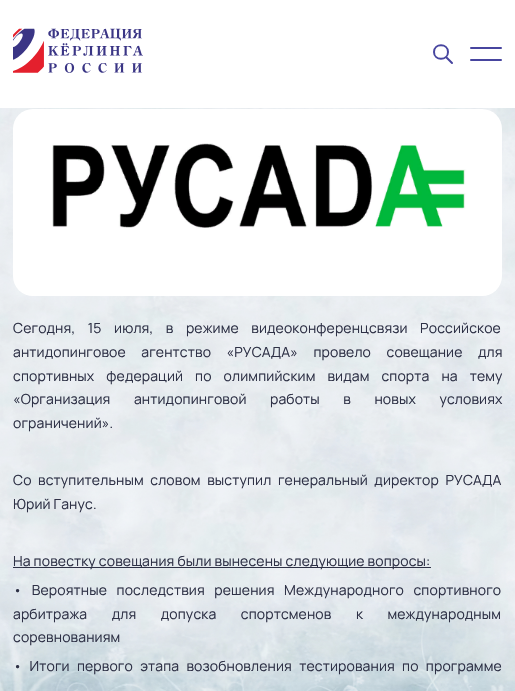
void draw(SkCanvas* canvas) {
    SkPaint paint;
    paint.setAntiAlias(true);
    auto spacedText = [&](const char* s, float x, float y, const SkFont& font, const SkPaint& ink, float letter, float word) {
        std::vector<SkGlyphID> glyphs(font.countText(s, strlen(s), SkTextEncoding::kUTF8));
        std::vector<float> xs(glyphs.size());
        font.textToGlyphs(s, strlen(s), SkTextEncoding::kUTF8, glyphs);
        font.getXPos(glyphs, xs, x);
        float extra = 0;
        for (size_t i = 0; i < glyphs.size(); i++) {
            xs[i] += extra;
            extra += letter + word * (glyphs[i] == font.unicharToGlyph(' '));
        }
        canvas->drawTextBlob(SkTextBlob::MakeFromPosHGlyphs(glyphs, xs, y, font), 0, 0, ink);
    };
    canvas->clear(0xFFFFFFFF);
    canvas->drawImageRect(SkImages::DeferredFromEncodedData(SkData::MakeFromFileName("img1.png")), SkRect::MakeXYWH(13, 28, 130, 45), SkSamplingOptions());
    paint.setStyle(SkPaint::kStroke_Style);
    paint.setStrokeWidth(2);
    paint.setStrokeCap(SkPaint::kRound_Cap);
    paint.setStrokeJoin(SkPaint::kRound_Join);
    paint.setColor(0xFF47459F);
    canvas->drawPath(SkPathBuilder().moveTo(452, 63).lineTo(446, 57).moveTo(448, 52).cubicTo(448, 61, 434, 61, 434, 52).cubicTo(434, 43, 448, 43, 448, 52).close().detach(), paint);
    paint.setStyle(SkPaint::kFill_Style);
    canvas->drawRoundRect(SkRect::MakeXYWH(470, 47, 32, 2), 1, 1, paint);
    canvas->drawRoundRect(SkRect::MakeXYWH(470, 59, 32, 2), 1, 1, paint);
    canvas->drawImageRect(SkImages::DeferredFromEncodedData(SkData::MakeFromFileName("img2.png")), SkRect::MakeXYWH(0, 108, 515, 583), SkSamplingOptions());
    canvas->drawImageRect(SkImages::DeferredFromEncodedData(SkData::MakeFromFileName("img3.png")), SkRect::MakeXYWH(13, 109, 489, 187), SkSamplingOptions());
    SkFont font1(fontMgr->matchFamilyStyle("Manrope", SkFontStyle::Normal()), 14);
    font1.setSubpixel(true);
    paint.setColor(0xFF2E3146);
    spacedText("Сегодня, 15 июля, в режиме видеоконференцсвязи Российское", 13, 333, font1, paint, 0.15f, 9.5f);
    spacedText("антидопинговое агентство «РУСАДА» провело совещание для", 13, 357, font1, paint, 0.15f, 12.5f);
    spacedText("спортивных федераций по олимпийским видам спорта на тему", 13, 381, font1, paint, 0.15f, 9);
    spacedText("«Организация антидопинговой работы в новых условиях", 13, 404, font1, paint, 0.15f, 20.5f);
    spacedText("ограничений».", 13, 428, font1, paint, 0.15f, 0);
    spacedText("Со вступительным словом выступил генеральный директор РУСАДА", 13, 485, font1, paint, 0.15f, 3.5f);
    spacedText("Юрий Ганус.", 13, 509, font1, paint, 0.15f, 0);
    canvas->drawRect(SkRect::MakeXYWH(13, 567, 418, 1), paint);
    spacedText("На повестку совещания были вынесены следующие вопросы:", 13, 566, font1, paint, 0.15f, 0);
    spacedText("• Вероятные последствия решения Международного спортивного", 13, 595, font1, paint, 0.15f, 6.5f);
    spacedText("арбитража для допуска спортсменов к международным", 13, 619, font1, paint, 0.15f, 21.5f);
    spacedText("соревнованиям", 13, 642, font1, paint, 0.15f, 0);
    spacedText("• Итоги первого этапа возобновления тестирования по программе", 13, 671, font1, paint, 0.15f, 4.25f);
}
